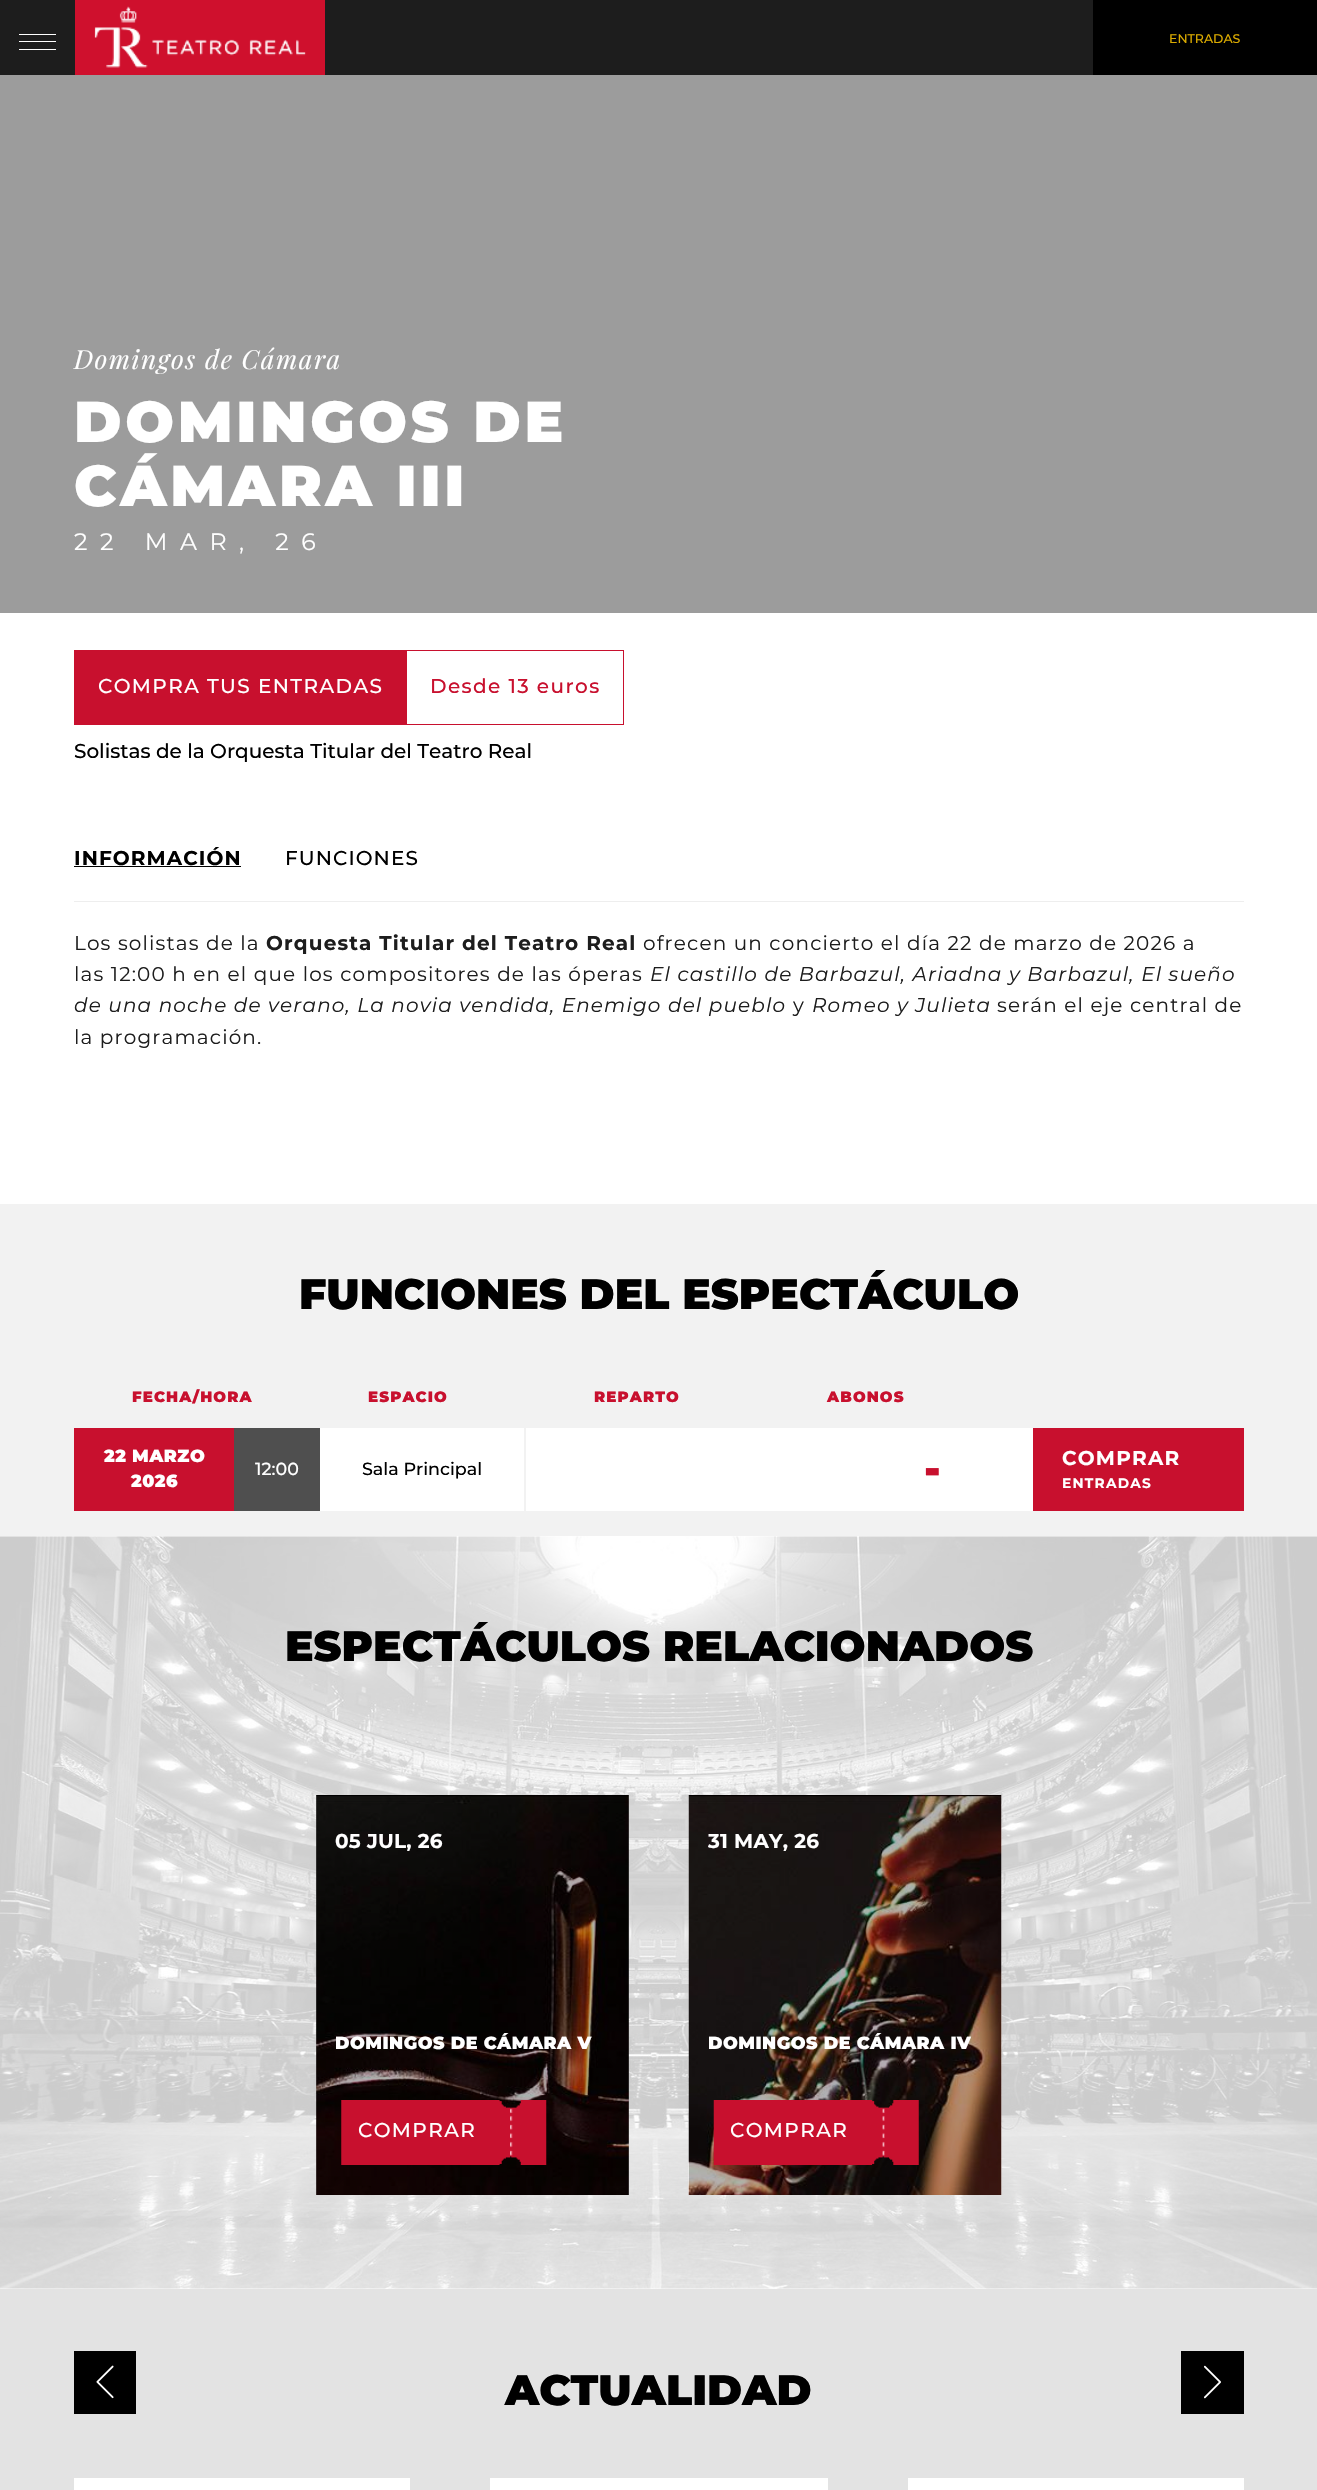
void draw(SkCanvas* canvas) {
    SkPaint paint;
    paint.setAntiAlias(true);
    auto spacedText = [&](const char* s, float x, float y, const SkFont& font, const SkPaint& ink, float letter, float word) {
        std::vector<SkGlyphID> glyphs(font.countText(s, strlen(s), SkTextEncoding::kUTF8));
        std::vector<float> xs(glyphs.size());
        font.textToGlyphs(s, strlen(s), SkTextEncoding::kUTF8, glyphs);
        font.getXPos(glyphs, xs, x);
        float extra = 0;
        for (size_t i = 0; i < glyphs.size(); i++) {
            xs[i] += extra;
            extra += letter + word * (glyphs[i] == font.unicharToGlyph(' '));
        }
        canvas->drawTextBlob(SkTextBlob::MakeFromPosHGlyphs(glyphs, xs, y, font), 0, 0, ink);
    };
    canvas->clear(0xFFFFFFFF);
    paint.setColor(0xFF1D1D1D);
    canvas->drawRect(SkRect::MakeXYWH(0, 0, 1093, 75), paint);
    paint.setColor(0xFFFFFFFF);
    canvas->drawRect(SkRect::MakeXYWH(19, 34, 37, 1), paint);
    canvas->drawRect(SkRect::MakeXYWH(19, 41, 37, 1), paint);
    canvas->drawRect(SkRect::MakeXYWH(19, 49, 37, 1), paint);
    canvas->drawImageRect(SkImages::DeferredFromEncodedData(SkData::MakeFromFileName("img1.png")), SkRect::MakeXYWH(75, 0, 250, 75), SkSamplingOptions());
    paint.setColor(0xFF000000);
    canvas->drawRect(SkRect::MakeXYWH(1093, 0, 224, 75), paint);
    SkFont font1(fontMgr->matchFamilyStyle("Montserrat", SkFontStyle(500, SkFontStyle::kNormal_Width, SkFontStyle::kUpright_Slant)), 12.5f);
    font1.setSubpixel(true);
    paint.setColor(0xFFDAAA00);
    canvas->drawString("ENTRADAS", 1169, 43, font1, paint);
    paint.setColor(0xFF9C9C9C);
    canvas->drawRect(SkRect::MakeXYWH(0, 75, 1317, 538), paint);
    SkFont font2(fontMgr->matchFamilyStyle("Playfair Display", SkFontStyle::Italic()), 26.25f);
    font2.setSubpixel(true);
    paint.setColor(0xFFFFFFFF);
    spacedText("Domingos de Cámara", 74, 369, font2, paint, 1.5f, 0);
    SkFont font3(fontMgr->matchFamilyStyle("Montserrat", SkFontStyle(900, SkFontStyle::kNormal_Width, SkFontStyle::kUpright_Slant)), 57.5f);
    font3.setSubpixel(true);
    spacedText("DOMINGOS DE", 74, 442, font3, paint, 3.75f, 0);
    spacedText("CÁMARA III", 74, 506, font3, paint, 3.75f, 0);
    SkFont font4(fontMgr->matchFamilyStyle("Montserrat", SkFontStyle::Normal()), 23.75f);
    font4.setSubpixel(true);
    spacedText("22 MAR, 26", 74, 550, font4, paint, 12.5f, 0);
    paint.setColor(0xFFC8102E);
    canvas->drawRect(SkRect::MakeXYWH(74, 650, 332, 75), paint);
    SkFont font5(fontMgr->matchFamilyStyle("Montserrat", SkFontStyle(500, SkFontStyle::kNormal_Width, SkFontStyle::kUpright_Slant)), 20);
    font5.setSubpixel(true);
    paint.setColor(0xFFFFFFFF);
    spacedText("COMPRA TUS ENTRADAS", 98, 693, font5, paint, 1.4f, 0);
    paint.setStyle(SkPaint::kStroke_Style);
    paint.setStrokeWidth(1);
    paint.setColor(0xFFC8102E);
    canvas->drawRect(SkRect::MakeXYWH(406.5f, 650.5f, 217, 74), paint);
    paint.setStyle(SkPaint::kFill_Style);
    spacedText("Desde 13 euros", 430, 693, font5, paint, 1.4f, 0);
    paint.setColor(0xFF000000);
    canvas->drawString("Solistas de la Orquesta Titular del Teatro Real", 74, 758, font5, paint);
    paint.setColor(0xFFEEEEEE);
    canvas->drawRect(SkRect::MakeXYWH(74, 901, 1170, 1), paint);
    SkFont font6(fontMgr->matchFamilyStyle("Montserrat", SkFontStyle::Bold()), 20);
    font6.setSubpixel(true);
    paint.setColor(0xFF000000);
    spacedText("INFORMACIÓN", 74, 865, font6, paint, 1.1f, 0);
    canvas->drawRect(SkRect::MakeXYWH(74, 866, 167, 1), paint);
    spacedText("FUNCIONES", 285, 865, font5, paint, 1.1f, 0);
    SkFont font7(fontMgr->matchFamilyStyle("Montserrat", SkFontStyle::Normal()), 20);
    font7.setSubpixel(true);
    paint.setColor(0xFF1D1D1D);
    spacedText("Los solistas de la", 74, 950, font7, paint, 1.15f, 0);
    spacedText("Orquesta Titular del Teatro Real", 266, 950, font6, paint, 1.15f, 0);
    spacedText("ofrecen un concierto el día 22 de marzo de 2026 a", 643, 950, font7, paint, 1.15f, 0);
    spacedText("las 12:00 h en el que los compositores de las óperas", 74, 981, font7, paint, 1.15f, 0);
    SkFont font8(fontMgr->matchFamilyStyle("Montserrat", SkFontStyle::Italic()), 20);
    font8.setSubpixel(true);
    spacedText("El castillo de Barbazul, Ariadna y Barbazul, El sueño", 650, 981, font8, paint, 1.15f, 0);
    spacedText("de una noche de verano, La novia vendida, Enemigo del pueblo", 74, 1012, font8, paint, 1.15f, 0);
    spacedText("y", 793, 1012, font7, paint, 1.15f, 0);
    spacedText("Romeo y Julieta", 812, 1012, font8, paint, 1.15f, 0);
    spacedText("serán el eje central de", 997, 1012, font7, paint, 1.15f, 0);
    spacedText("la programación.", 74, 1044, font7, paint, 1.15f, 0);
    paint.setColor(0xFFF2F2F2);
    canvas->drawRect(SkRect::MakeXYWH(0, 1204, 1317, 332), paint);
    SkFont font9(fontMgr->matchFamilyStyle("Montserrat", SkFontStyle(900, SkFontStyle::kNormal_Width, SkFontStyle::kUpright_Slant)), 42.5f);
    font9.setSubpixel(true);
    paint.setColor(0xFF000000);
    canvas->drawString("FUNCIONES DEL ESPECTÁCULO", 299, 1309, font9, paint);
    SkFont font10(fontMgr->matchFamilyStyle("Montserrat", SkFontStyle(900, SkFontStyle::kNormal_Width, SkFontStyle::kUpright_Slant)), 15);
    font10.setSubpixel(true);
    paint.setColor(0xFFC8102E);
    spacedText("FECHA/HORA", 132, 1402, font10, paint, 1.1f, 0);
    spacedText("ESPACIO", 368, 1402, font10, paint, 1.1f, 0);
    spacedText("REPARTO", 594, 1402, font10, paint, 1.1f, 0);
    spacedText("ABONOS", 827, 1402, font10, paint, 1.1f, 0);
    canvas->drawRect(SkRect::MakeXYWH(74, 1428, 160, 83), paint);
    SkFont font11(fontMgr->matchFamilyStyle("Montserrat", SkFontStyle(900, SkFontStyle::kNormal_Width, SkFontStyle::kUpright_Slant)), 17.5f);
    font11.setSubpixel(true);
    paint.setColor(0xFFFFFFFF);
    spacedText("22 MARZO", 104, 1462, font11, paint, 0.5f, 0);
    spacedText("2026", 131, 1487, font11, paint, 0.5f, 0);
    paint.setColor(0xFF4F4F4F);
    canvas->drawRect(SkRect::MakeXYWH(234, 1428, 86, 83), paint);
    SkFont font12(fontMgr->matchFamilyStyle("Montserrat", SkFontStyle(500, SkFontStyle::kNormal_Width, SkFontStyle::kUpright_Slant)), 17.5f);
    font12.setSubpixel(true);
    paint.setColor(0xFFFFFFFF);
    canvas->drawString("12:00", 255, 1475, font12, paint);
    canvas->drawRect(SkRect::MakeXYWH(320, 1428, 204, 83), paint);
    paint.setColor(0xFF000000);
    canvas->drawString("Sala Principal", 362, 1475, font12, paint);
    paint.setColor(0xFFFFFFFF);
    canvas->drawRect(SkRect::MakeXYWH(526, 1428, 507, 83), paint);
    paint.setColor(0xFFC8102E);
    canvas->drawString("-", 924, 1484, font9, paint);
    canvas->drawRect(SkRect::MakeXYWH(1033, 1428, 211, 83), paint);
    paint.setColor(0xFFFFFFFF);
    spacedText("COMPRAR", 1062, 1465, font6, paint, 1.25f, 0);
    SkFont font13(fontMgr->matchFamilyStyle("Montserrat", SkFontStyle::Bold()), 13.75f);
    font13.setSubpixel(true);
    spacedText("ENTRADAS", 1062, 1488, font13, paint, 1.25f, 0);
    canvas->drawImageRect(SkImages::DeferredFromEncodedData(SkData::MakeFromFileName("img2.png")), SkRect::MakeXYWH(0, 1536, 1317, 753), SkSamplingOptions());
    paint.setColor(0xFF000000);
    canvas->drawString("ESPECTÁCULOS RELACIONADOS", 285, 1661, font9, paint);
    canvas->drawImageRect(SkImages::DeferredFromEncodedData(SkData::MakeFromFileName("img3.png")), SkRect::MakeXYWH(316, 1795, 313, 400), SkSamplingOptions());
    paint.setColor(0x4D000000);
    canvas->drawRect(SkRect::MakeXYWH(316, 1795, 313, 400), paint);
    paint.setColor(0xFFFFFFFF);
    spacedText("05 JUL, 26", 335, 1848, font6, paint, 0.25f, 0);
    spacedText("DOMINGOS DE CÁMARA V", 335, 2049, font11, paint, 0.5f, 0);
    canvas->drawImageRect(SkImages::DeferredFromEncodedData(SkData::MakeFromFileName("img4.png")), SkRect::MakeXYWH(341, 2100, 206, 65), SkSamplingOptions());
    spacedText("COMPRAR", 358, 2137, font5, paint, 1.4f, 0);
    canvas->drawImageRect(SkImages::DeferredFromEncodedData(SkData::MakeFromFileName("img5.png")), SkRect::MakeXYWH(688, 1795, 314, 400), SkSamplingOptions());
    spacedText("31 MAY, 26", 708, 1848, font6, paint, 0.25f, 0);
    spacedText("DOMINGOS DE CÁMARA IV", 708, 2049, font11, paint, 0.5f, 0);
    canvas->drawImageRect(SkImages::DeferredFromEncodedData(SkData::MakeFromFileName("img6.png")), SkRect::MakeXYWH(713, 2100, 206, 65), SkSamplingOptions());
    spacedText("COMPRAR", 730, 2137, font5, paint, 1.4f, 0);
    paint.setColor(0xFFE3E3E3);
    canvas->drawRect(SkRect::MakeXYWH(0, 2289, 1317, 201), paint);
    paint.setColor(0xFF000000);
    canvas->drawRect(SkRect::MakeXYWH(74, 2351, 62, 63), paint);
    canvas->drawImageRect(SkImages::DeferredFromEncodedData(SkData::MakeFromFileName("img7.png")), SkRect::MakeXYWH(96, 2365, 18, 34), SkSamplingOptions());
    canvas->drawString("ACTUALIDAD", 505, 2405, font9, paint);
    canvas->drawRect(SkRect::MakeXYWH(1181, 2351, 63, 63), paint);
    canvas->drawImageRect(SkImages::DeferredFromEncodedData(SkData::MakeFromFileName("img8.png")), SkRect::MakeXYWH(1204, 2365, 17, 34), SkSamplingOptions());
    paint.setColor(0xFFFFFFFF);
    canvas->drawRect(SkRect::MakeXYWH(74, 2478, 336, 12), paint);
    canvas->drawRect(SkRect::MakeXYWH(490, 2478, 338, 12), paint);
    canvas->drawRect(SkRect::MakeXYWH(908, 2478, 336, 12), paint);
}
